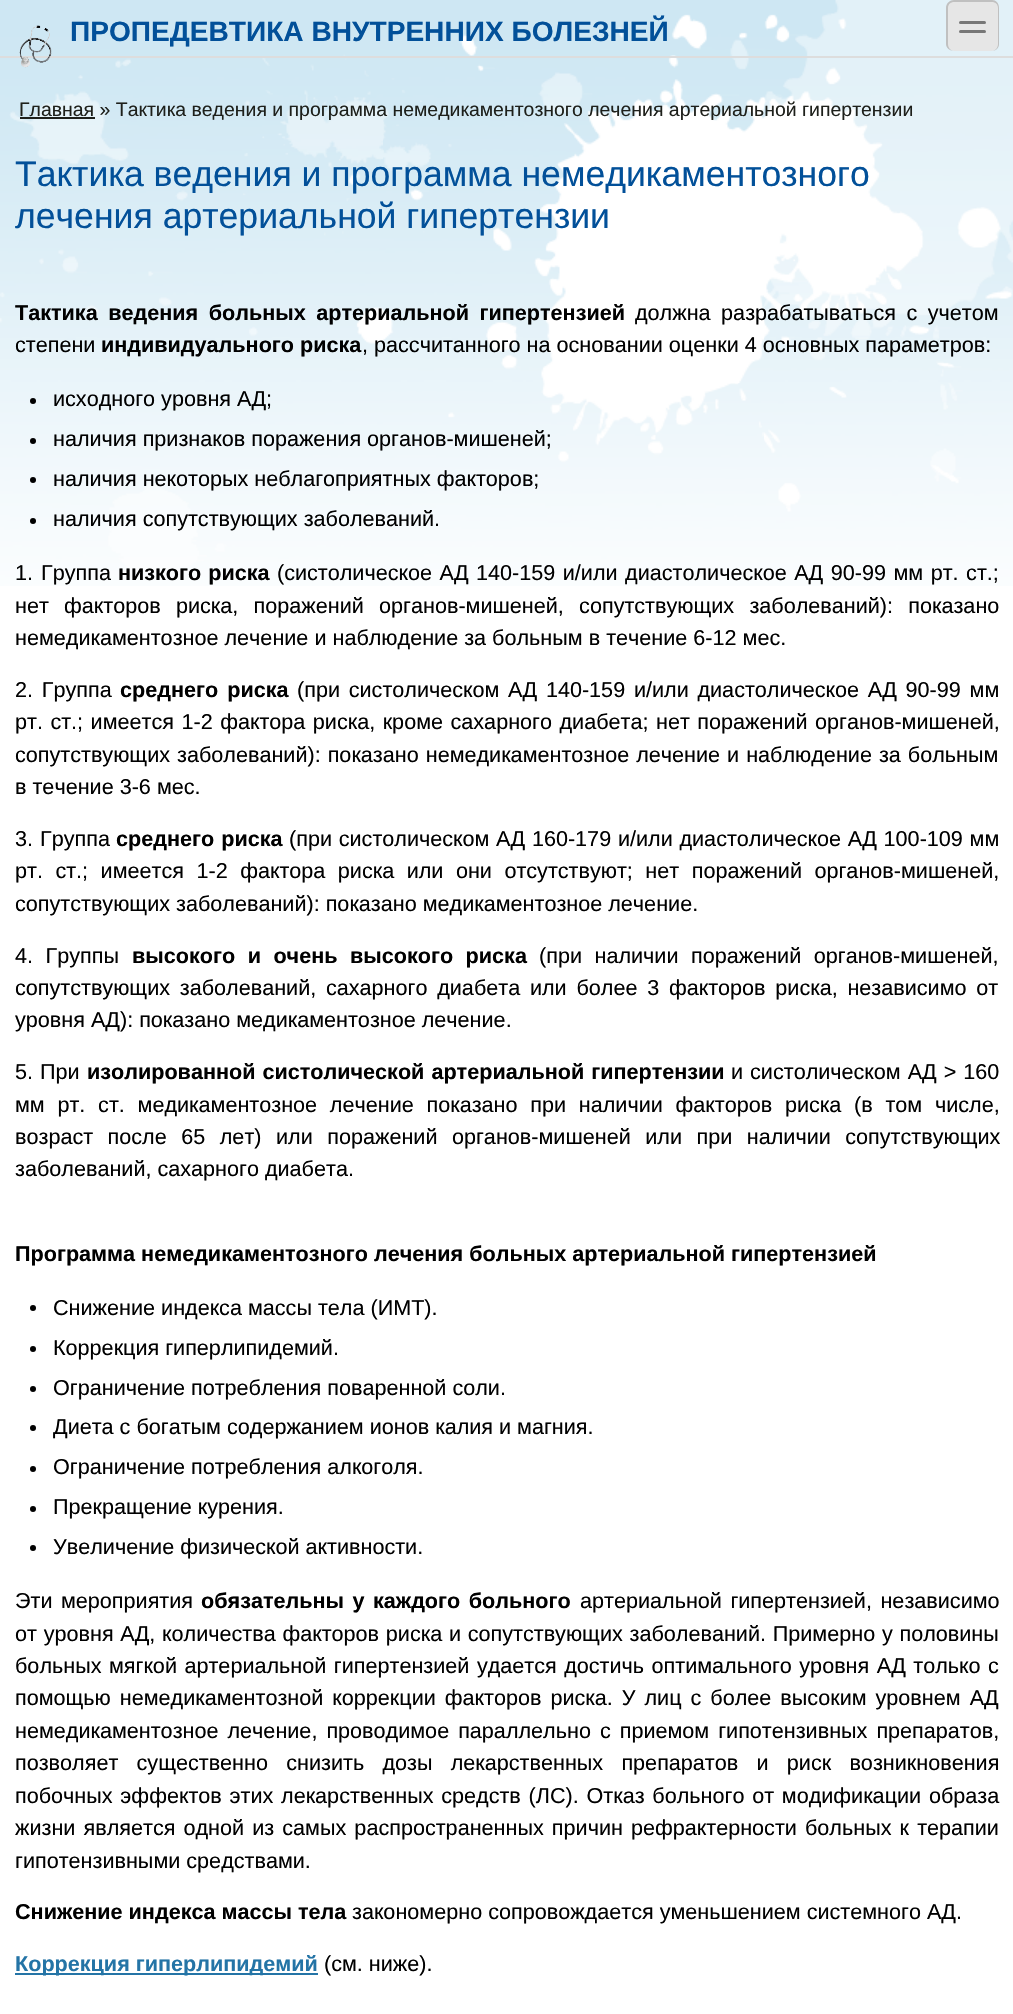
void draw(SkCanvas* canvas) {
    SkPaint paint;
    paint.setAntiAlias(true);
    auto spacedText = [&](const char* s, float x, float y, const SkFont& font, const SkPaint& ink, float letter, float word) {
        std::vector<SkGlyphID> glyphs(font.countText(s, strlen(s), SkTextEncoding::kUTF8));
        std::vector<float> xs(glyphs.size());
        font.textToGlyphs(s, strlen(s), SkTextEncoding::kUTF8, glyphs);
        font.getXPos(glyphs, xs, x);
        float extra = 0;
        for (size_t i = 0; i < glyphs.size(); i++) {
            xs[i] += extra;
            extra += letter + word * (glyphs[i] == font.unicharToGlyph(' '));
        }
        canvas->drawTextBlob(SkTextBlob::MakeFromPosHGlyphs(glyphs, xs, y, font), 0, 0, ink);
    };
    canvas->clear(0xFFFFFFFF);
    canvas->drawImageRect(SkImages::DeferredFromEncodedData(SkData::MakeFromFileName("img1.png")), SkRect::MakeXYWH(0, 0, 1013, 586), SkSamplingOptions());
    paint.setColor(0xFFDDDDDD);
    canvas->drawRect(SkRect::MakeXYWH(0, 56, 1013, 2), paint);
    canvas->drawImageRect(SkImages::DeferredFromEncodedData(SkData::MakeFromFileName("img2.png")), SkRect::MakeXYWH(19, 25, 33, 43), SkSamplingOptions());
    SkFont font1(fontMgr->matchFamilyStyle("Liberation Sans", SkFontStyle::Bold()), 28.1f);
    font1.setSubpixel(true);
    paint.setColor(0xFF025099);
    canvas->drawString("ПРОПЕДЕВТИКА ВНУТРЕННИХ БОЛЕЗНЕЙ", 70, 41, font1, paint);
    paint.setColor(0xFFE6E6E6);
    canvas->drawRoundRect(SkRect::MakeXYWH(947, 0, 52, 51), 8, 8, paint);
    paint.setColor(0xFFC0C0C0);
    canvas->drawPath(SkPathBuilder(SkPathFillType::kEvenOdd).moveTo(954, 0).lineTo(992, 0).cubicTo(996, 0, 999, 3, 999, 8).lineTo(999, 44).cubicTo(999, 48, 996, 51, 992, 51).lineTo(954, 51).cubicTo(950, 51, 946, 48, 946, 44).lineTo(946, 8).cubicTo(946, 3, 950, 0, 954, 0).close().moveTo(954, 2).lineTo(992, 2).cubicTo(995, 2, 998, 4, 998, 8).lineTo(998, 44).cubicTo(998, 48, 995, 51, 992, 51).lineTo(954, 51).cubicTo(951, 51, 948, 48, 948, 44).lineTo(948, 8).cubicTo(948, 4, 951, 2, 954, 2).close().detach(), paint);
    paint.setColor(0xFF777777);
    canvas->drawRoundRect(SkRect::MakeXYWH(959, 21, 27, 3), 1.5f, 1.5f, paint);
    canvas->drawRoundRect(SkRect::MakeXYWH(959, 30, 27, 3), 1.5f, 1.5f, paint);
    paint.setColor(0xFF1E201B);
    canvas->drawRect(SkRect::MakeXYWH(20, 117, 75, 2), paint);
    SkFont font2(fontMgr->matchFamilyStyle("Liberation Sans", SkFontStyle::Normal()), 19.45f);
    font2.setSubpixel(true);
    canvas->drawString("Главная » Тактика ведения и программа немедикаментозного лечения артериальной гипертензии", 19, 116, font2, paint);
    SkFont font3(fontMgr->matchFamilyStyle("Liberation Sans", SkFontStyle::Normal()), 35.6f);
    font3.setSubpixel(true);
    paint.setColor(0xFF025099);
    canvas->drawString("Тактика ведения и программа немедикаментозного", 15, 186, font3, paint);
    canvas->drawString("лечения артериальной гипертензии", 15, 228, font3, paint);
    SkFont font4(fontMgr->matchFamilyStyle("Liberation Sans", SkFontStyle::Bold()), 21.6f);
    font4.setSubpixel(true);
    paint.setColor(0xFF000000);
    spacedText("Тактика ведения больных артериальной гипертензией", 15, 320, font4, paint, 0, 4.5f);
    SkFont font5(fontMgr->matchFamilyStyle("Liberation Sans", SkFontStyle::Normal()), 21.6f);
    font5.setSubpixel(true);
    spacedText("должна разрабатываться с учетом", 635, 320, font5, paint, 0, 4.5f);
    canvas->drawString("степени", 15, 352, font5, paint);
    canvas->drawString("индивидуального риска", 101, 352, font4, paint);
    canvas->drawString(", рассчитанного на основании оценки 4 основных параметров:", 362, 352, font5, paint);
    canvas->drawCircle(33, 401, 3, paint);
    canvas->drawString("исходного уровня АД;", 53, 406, font5, paint);
    canvas->drawCircle(33, 441, 3, paint);
    canvas->drawString("наличия признаков поражения органов-мишеней;", 53, 446, font5, paint);
    canvas->drawCircle(33, 480, 3, paint);
    canvas->drawString("наличия некоторых неблагоприятных факторов;", 53, 486, font5, paint);
    canvas->drawCircle(33, 521, 3, paint);
    canvas->drawString("наличия сопутствующих заболеваний.", 53, 526, font5, paint);
    spacedText("1. Группа", 15, 580, font5, paint, 0, 2);
    spacedText("низкого риска", 118, 580, font4, paint, 0, 1);
    spacedText("(систолическое АД 140-159 и/или диастолическое АД 90-99 мм рт. ст.;", 277, 580, font5, paint, 0, 1.5f);
    spacedText("нет факторов риска, поражений органов-мишеней, сопутствующих заболеваний): показано", 15, 613, font5, paint, 0, 9.25f);
    canvas->drawString("немедикаментозное лечение и наблюдение за больным в течение 6-12 мес.", 15, 645, font5, paint);
    spacedText("2. Группа", 15, 697, font5, paint, 0, 2.75f);
    spacedText("среднего риска", 120, 697, font4, paint, 0, 3);
    spacedText("(при систолическом АД 140-159 и/или диастолическое АД 90-99 мм", 297, 697, font5, paint, 0, 2.75f);
    spacedText("рт. ст.; имеется 1-2 фактора риска, кроме сахарного диабета; нет поражений органов-мишеней,", 15, 729, font5, paint, 0, 1.5f);
    spacedText("сопутствующих заболеваний): показано немедикаментозное лечение и наблюдение за больным", 15, 762, font5, paint, 0, 1);
    canvas->drawString("в течение 3-6 мес.", 15, 794, font5, paint);
    spacedText("3. Группа", 15, 846, font5, paint, 0, 1);
    spacedText("среднего риска", 116, 846, font4, paint, 0, 1);
    spacedText("(при систолическом АД 160-179 и/или диастолическое АД 100-109 мм", 289, 846, font5, paint, 0, 0.75f);
    spacedText("рт. ст.; имеется 1-2 фактора риска или они отсутствуют; нет поражений органов-мишеней,", 15, 878, font5, paint, 0, 6.5f);
    canvas->drawString("сопутствующих заболеваний): показано медикаментозное лечение.", 15, 911, font5, paint);
    spacedText("4. Группы", 15, 963, font5, paint, 0, 6.5f);
    spacedText("высокого и очень высокого риска", 132, 963, font4, paint, 0, 6.5f);
    spacedText("(при наличии поражений органов-мишеней,", 539, 963, font5, paint, 0, 6.5f);
    spacedText("сопутствующих заболеваний, сахарного диабета или более 3 факторов риска, независимо от", 15, 995, font5, paint, 0, 3.75f);
    canvas->drawString("уровня АД): показано медикаментозное лечение.", 15, 1027, font5, paint);
    spacedText("5. При", 15, 1079, font5, paint, 0, 1);
    spacedText("изолированной систолической артериальной гипертензии", 87, 1079, font4, paint, 0, 1);
    spacedText("и систолическом АД > 160", 731, 1079, font5, paint, 0, 1);
    spacedText("мм рт. ст. медикаментозное лечение показано при наличии факторов риска (в том числе,", 15, 1112, font5, paint, 0, 6.75f);
    spacedText("возраст после 65 лет) или поражений органов-мишеней или при наличии сопутствующих", 15, 1144, font5, paint, 0, 8.5f);
    canvas->drawString("заболеваний, сахарного диабета.", 15, 1176, font5, paint);
    canvas->drawString("Программа немедикаментозного лечения больных артериальной гипертензией", 15, 1261, font4, paint);
    canvas->drawCircle(33, 1308, 3, paint);
    canvas->drawString("Снижение индекса массы тела (ИМТ).", 53, 1315, font5, paint);
    canvas->drawCircle(33, 1349, 3, paint);
    canvas->drawString("Коррекция гиперлипидемий.", 53, 1355, font5, paint);
    canvas->drawCircle(33, 1389, 3, paint);
    canvas->drawString("Ограничение потребления поваренной соли.", 53, 1395, font5, paint);
    canvas->drawCircle(33, 1428, 3, paint);
    canvas->drawString("Диета с богатым содержанием ионов калия и магния.", 53, 1434, font5, paint);
    canvas->drawCircle(33, 1469, 3, paint);
    canvas->drawString("Ограничение потребления алкоголя.", 53, 1474, font5, paint);
    canvas->drawCircle(33, 1509, 3, paint);
    canvas->drawString("Прекращение курения.", 53, 1514, font5, paint);
    canvas->drawCircle(33, 1548, 3, paint);
    canvas->drawString("Увеличение физической активности.", 53, 1554, font5, paint);
    spacedText("Эти мероприятия", 15, 1608, font5, paint, 0, 2.5f);
    spacedText("обязательны у каждого больного", 201, 1608, font4, paint, 0, 2.5f);
    spacedText("артериальной гипертензией, независимо", 580, 1608, font5, paint, 0, 2.5f);
    spacedText("от уровня АД, количества факторов риска и сопутствующих заболеваний. Примерно у половины", 15, 1641, font5, paint, 0, 0.75f);
    spacedText("больных мягкой артериальной гипертензией удается достичь оптимального уровня АД только с", 15, 1673, font5, paint, 0, 1.5f);
    spacedText("помощью немедикаментозной коррекции факторов риска. У лиц с более высоким уровнем АД", 15, 1705, font5, paint, 0, 3);
    spacedText("немедикаментозное лечение, проводимое параллельно с приемом гипотензивных препаратов,", 15, 1738, font5, paint, 0, 3);
    spacedText("позволяет существенно снизить дозы лекарственных препаратов и риск возникновения", 15, 1770, font5, paint, 0, 12.25f);
    spacedText("побочных эффектов этих лекарственных средств (ЛС). Отказ больного от модификации образа", 15, 1803, font5, paint, 0, 1.75f);
    spacedText("жизни является одной из самых распространенных причин рефрактерности больных к терапии", 15, 1835, font5, paint, 0, 2.1f);
    canvas->drawString("гипотензивными средствами.", 15, 1868, font5, paint);
    canvas->drawString("Снижение индекса массы тела", 15, 1919, font4, paint);
    canvas->drawString("закономерно сопровождается уменьшением системного АД.", 352, 1919, font5, paint);
    paint.setColor(0xFF2474A6);
    canvas->drawRect(SkRect::MakeXYWH(15, 1973, 303, 2), paint);
    canvas->drawString("Коррекция гиперлипидемий", 15, 1971, font4, paint);
    paint.setColor(0xFF000000);
    canvas->drawString("(см. ниже).", 324, 1971, font5, paint);
}
